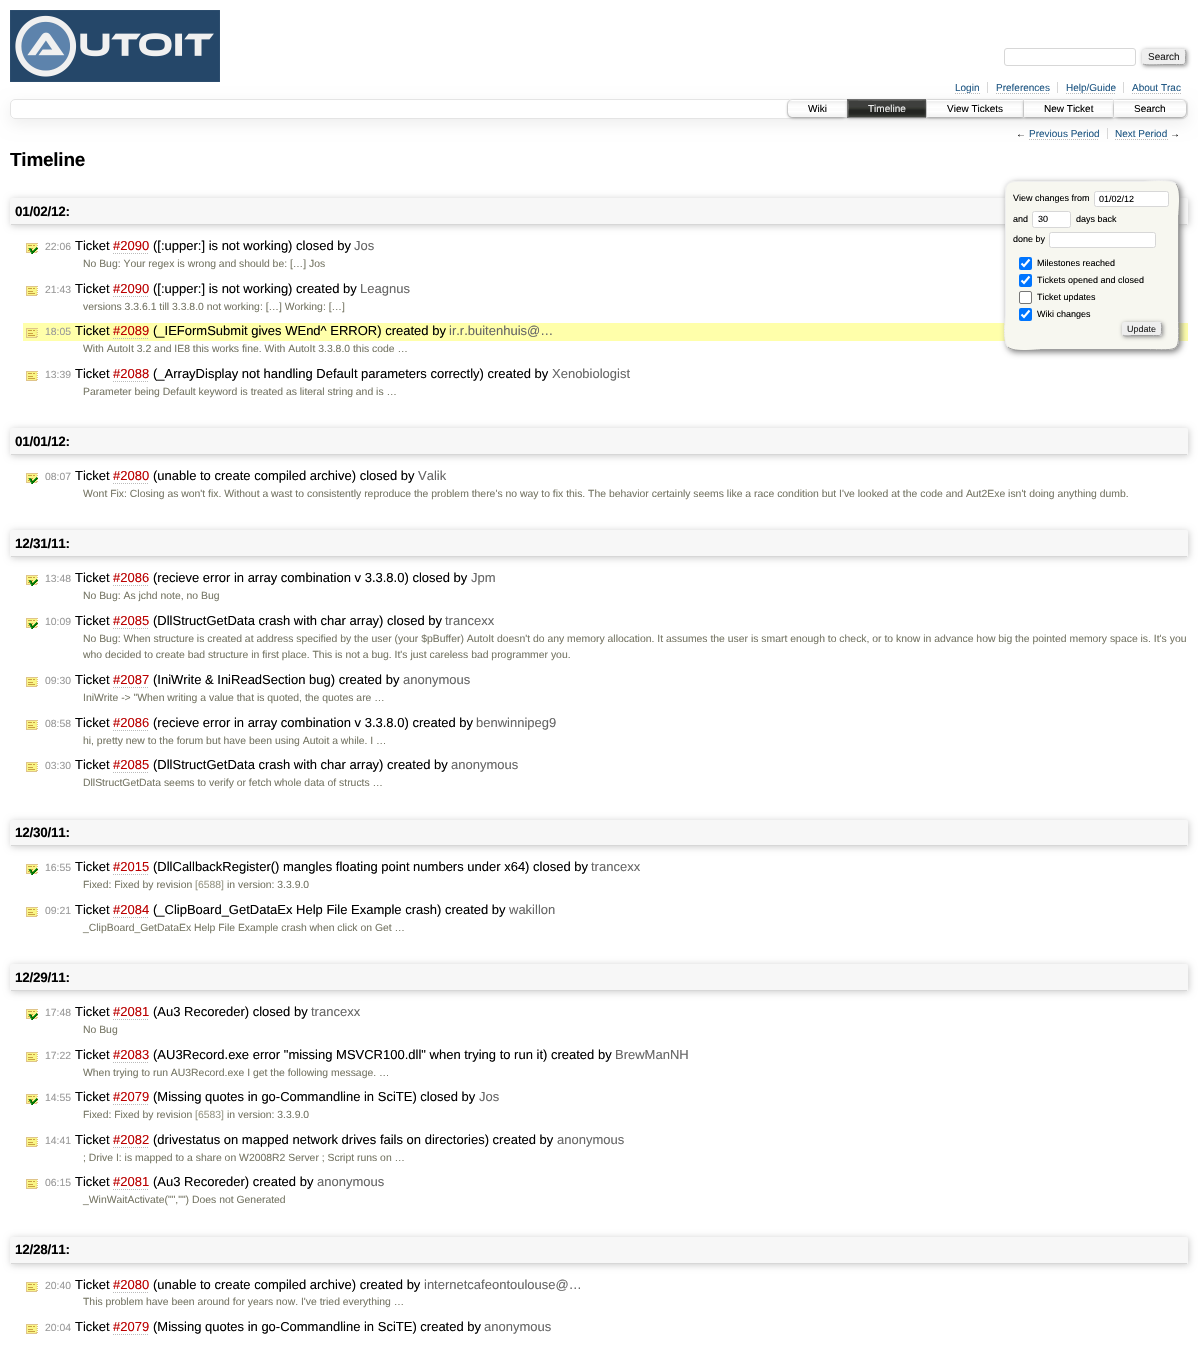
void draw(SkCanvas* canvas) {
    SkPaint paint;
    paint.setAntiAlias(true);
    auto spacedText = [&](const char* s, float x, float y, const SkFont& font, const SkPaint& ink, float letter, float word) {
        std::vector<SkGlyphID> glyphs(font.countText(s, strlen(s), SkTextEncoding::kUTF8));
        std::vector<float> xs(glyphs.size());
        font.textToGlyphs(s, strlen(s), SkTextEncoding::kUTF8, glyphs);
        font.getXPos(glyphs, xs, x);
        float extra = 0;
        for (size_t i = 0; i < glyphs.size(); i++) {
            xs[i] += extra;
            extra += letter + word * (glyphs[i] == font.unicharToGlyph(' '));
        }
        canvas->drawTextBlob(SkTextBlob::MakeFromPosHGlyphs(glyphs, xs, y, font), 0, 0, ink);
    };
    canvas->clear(0xFFFFFFFF);
    canvas->save();
    canvas->clipPath(SkPathBuilder(SkPathFillType::kEvenOdd).moveTo(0, 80).lineTo(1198, 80).lineTo(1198, 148).lineTo(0, 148).close().moveTo(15, 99).lineTo(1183, 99).cubicTo(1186, 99, 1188, 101, 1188, 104).lineTo(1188, 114).cubicTo(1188, 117, 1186, 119, 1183, 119).lineTo(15, 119).cubicTo(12, 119, 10, 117, 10, 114).lineTo(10, 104).cubicTo(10, 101, 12, 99, 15, 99).close().detach(), true);
    paint.setColor(0xFFEEEEEE);
    paint.setMaskFilter(SkMaskFilter::MakeBlur(kNormal_SkBlurStyle, 7.5f));
    canvas->drawRoundRect(SkRect::MakeXYWH(10, 104, 1178, 20), 5, 5, paint);
    paint.setMaskFilter(nullptr);
    canvas->restore();
    canvas->drawImageRect(SkImages::DeferredFromEncodedData(SkData::MakeFromFileName("img1.png")), SkRect::MakeXYWH(10, 10, 210, 72), SkSamplingOptions());
    paint.setStyle(SkPaint::kStroke_Style);
    paint.setStrokeWidth(1);
    paint.setColor(0xFFD7D7D7);
    canvas->drawRoundRect(SkRect::MakeXYWH(1004.5f, 48.5f, 131, 17), 2.5f, 2.5f, paint);
    paint.setStyle(SkPaint::kFill_Style);
    paint.setColor(0xFF888888);
    paint.setMaskFilter(SkMaskFilter::MakeBlur(kNormal_SkBlurStyle, 2));
    canvas->drawRoundRect(SkRect::MakeXYWH(1143, 50, 44, 16), 3, 3, paint);
    paint.setMaskFilter(nullptr);
    paint.setColor(0xFFEEEEEE);
    canvas->drawRoundRect(SkRect::MakeXYWH(1142, 49, 44, 16), 3, 3, paint);
    paint.setStyle(SkPaint::kStroke_Style);
    paint.setColor(0xFF9F9F9F);
    canvas->drawPath(SkPathBuilder().moveTo(1185, 50).cubicTo(1186.5f, 52, 1185.5f, 55, 1185.5f, 57).cubicTo(1185.5f, 65.5f, 1186, 64.5f, 1176.5f, 64.5f).lineTo(1164, 64.5f).cubicTo(1161, 64.5f, 1145, 65.5f, 1143, 64).detach(), paint);
    paint.setColor(0xFFEEEEEE);
    canvas->drawPath(SkPathBuilder().moveTo(1143, 64).cubicTo(1141.5f, 62, 1142.5f, 59, 1142.5f, 57).cubicTo(1142.5f, 48.5f, 1142, 49.5f, 1151.5f, 49.5f).lineTo(1164, 49.5f).cubicTo(1167, 49.5f, 1183, 48.5f, 1185, 50).detach(), paint);
    SkFont font1(fontMgr->matchFamilyStyle("Liberation Sans", SkFontStyle::Normal()), 10);
    font1.setSubpixel(true);
    paint.setStyle(SkPaint::kFill_Style);
    paint.setColor(0xFF222222);
    canvas->drawString("Search", 1148, 60, font1, paint);
    paint.setColor(0xFFD7D7D7);
    canvas->drawRect(SkRect::MakeXYWH(987, 82, 1, 11), paint);
    paint.setStyle(SkPaint::kStroke_Style);
    paint.setColor(0xFFBBBBBB);
    paint.setPathEffect(SkDashPathEffect::Make({{1, 1}}, 0));
    canvas->drawPath(SkPathBuilder().moveTo(955, 93.5f).lineTo(980, 93.5f).detach(), paint);
    paint.setPathEffect(nullptr);
    paint.setStyle(SkPaint::kFill_Style);
    paint.setColor(0xFF225985);
    canvas->drawString("Login", 955, 91, font1, paint);
    paint.setColor(0xFFD7D7D7);
    canvas->drawRect(SkRect::MakeXYWH(1057, 82, 1, 11), paint);
    paint.setColor(0xFF225985);
    canvas->drawString("Preferences", 996, 91, font1, paint);
    paint.setStyle(SkPaint::kStroke_Style);
    paint.setColor(0xFFBBBBBB);
    paint.setPathEffect(SkDashPathEffect::Make({{1, 1}}, 0));
    canvas->drawPath(SkPathBuilder().moveTo(996, 93.5f).lineTo(1050, 93.5f).detach(), paint);
    paint.setPathEffect(nullptr);
    paint.setStyle(SkPaint::kFill_Style);
    paint.setColor(0xFFD7D7D7);
    canvas->drawRect(SkRect::MakeXYWH(1123, 82, 1, 11), paint);
    paint.setStyle(SkPaint::kStroke_Style);
    paint.setColor(0xFFBBBBBB);
    paint.setPathEffect(SkDashPathEffect::Make({{1, 1}}, 0));
    canvas->drawPath(SkPathBuilder().moveTo(1066, 93.5f).lineTo(1116, 93.5f).detach(), paint);
    paint.setPathEffect(nullptr);
    paint.setStyle(SkPaint::kFill_Style);
    paint.setColor(0xFF225985);
    canvas->drawString("Help/Guide", 1066, 91, font1, paint);
    canvas->drawString("About Trac", 1132, 91, font1, paint);
    paint.setStyle(SkPaint::kStroke_Style);
    paint.setColor(0xFFBBBBBB);
    paint.setPathEffect(SkDashPathEffect::Make({{1, 1}}, 0));
    canvas->drawPath(SkPathBuilder().moveTo(1132, 93.5f).lineTo(1181, 93.5f).detach(), paint);
    paint.setPathEffect(nullptr);
    paint.setColor(0xFFE4E4E4);
    canvas->drawRoundRect(SkRect::MakeXYWH(10.5f, 99.5f, 1177, 19), 4.5f, 4.5f, paint);
    paint.setStyle(SkPaint::kFill_Style);
    paint.setColor(0xFFFFFFFF);
    canvas->drawPath(SkPathBuilder().moveTo(792, 99).lineTo(848, 99).lineTo(848, 118).lineTo(792, 118).cubicTo(789, 118, 787, 116, 787, 113).lineTo(787, 104).cubicTo(787, 101, 789, 99, 792, 99).close().detach(), paint);
    canvas->drawImageRect(SkImages::DeferredFromEncodedData(SkData::MakeFromFileName("img2.png")), SkRect::MakeXYWH(787, 101, 60, 17), SkSamplingOptions());
    paint.setStyle(SkPaint::kStroke_Style);
    paint.setColor(0xFFE4E4E4);
    canvas->drawPath(SkPathBuilder().moveTo(792, 99.5f).lineTo(847.5f, 99.5f).lineTo(847.5f, 117.5f).lineTo(792, 117.5f).cubicTo(789.5f, 117.5f, 787.5f, 115.5f, 787.5f, 113).lineTo(787.5f, 104).cubicTo(787.5f, 101.5f, 789.5f, 99.5f, 792, 99.5f).close().detach(), paint);
    canvas->save();
    canvas->clipPath(SkPathBuilder(SkPathFillType::kEvenOdd).moveTo(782, 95).lineTo(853, 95).lineTo(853, 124).lineTo(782, 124).close().moveTo(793, 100).lineTo(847, 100).lineTo(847, 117).lineTo(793, 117).cubicTo(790, 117, 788, 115, 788, 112).lineTo(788, 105).cubicTo(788, 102, 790, 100, 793, 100).close().detach(), true);
    paint.setStyle(SkPaint::kFill_Style);
    paint.setColor(0xFF999999);
    paint.setMaskFilter(SkMaskFilter::MakeBlur(kNormal_SkBlurStyle, 1.5f));
    canvas->drawRoundRect(SkRect::MakeXYWH(788, 101, 59, 17), 5, 5, paint);
    paint.setMaskFilter(nullptr);
    canvas->restore();
    paint.setColor(0xFF000000);
    canvas->drawString("Wiki", 808, 112, font1, paint);
    paint.setStyle(SkPaint::kStroke_Style);
    paint.setColor(0xFF666666);
    canvas->drawRect(SkRect::MakeXYWH(847.5f, 99.5f, 79, 18), paint);
    paint.setStyle(SkPaint::kFill_Style);
    paint.setColor(0xFF999999);
    paint.setMaskFilter(SkMaskFilter::MakeBlur(kNormal_SkBlurStyle, 1.5f));
    canvas->drawRect(SkRect::MakeXYWH(848, 101, 78, 17), paint);
    paint.setMaskFilter(nullptr);
    paint.setColor(0xFF000000);
    canvas->drawRect(SkRect::MakeXYWH(848, 100, 78, 17), paint);
    canvas->drawImageRect(SkImages::DeferredFromEncodedData(SkData::MakeFromFileName("img3.png")), SkRect::MakeXYWH(848, 100, 78, 17), SkSamplingOptions());
    paint.setColor(0xFFEEEEEE);
    canvas->drawString("Timeline", 868, 112, font1, paint);
    paint.setColor(0xFFFFFFFF);
    canvas->drawRect(SkRect::MakeXYWH(927, 100, 2, 17), paint);
    canvas->drawImageRect(SkImages::DeferredFromEncodedData(SkData::MakeFromFileName("img4.png")), SkRect::MakeXYWH(927, 101, 96, 16), SkSamplingOptions());
    paint.setStyle(SkPaint::kStroke_Style);
    paint.setColor(0xFFE4E4E4);
    canvas->drawRect(SkRect::MakeXYWH(926.5f, 99.5f, 97, 18), paint);
    canvas->save();
    canvas->clipPath(SkPathBuilder(SkPathFillType::kEvenOdd).moveTo(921, 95).lineTo(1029, 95).lineTo(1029, 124).lineTo(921, 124).close().moveTo(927, 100).lineTo(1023, 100).lineTo(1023, 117).lineTo(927, 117).close().detach(), true);
    paint.setStyle(SkPaint::kFill_Style);
    paint.setColor(0xFF999999);
    paint.setMaskFilter(SkMaskFilter::MakeBlur(kNormal_SkBlurStyle, 1.5f));
    canvas->drawRect(SkRect::MakeXYWH(927, 101, 96, 17), paint);
    paint.setMaskFilter(nullptr);
    canvas->restore();
    paint.setColor(0xFF000000);
    canvas->drawString("View Tickets", 947, 112, font1, paint);
    paint.setColor(0xFFFFFFFF);
    canvas->drawRect(SkRect::MakeXYWH(1024, 100, 2, 17), paint);
    canvas->drawImageRect(SkImages::DeferredFromEncodedData(SkData::MakeFromFileName("img5.png")), SkRect::MakeXYWH(1024, 101, 89, 16), SkSamplingOptions());
    paint.setStyle(SkPaint::kStroke_Style);
    paint.setColor(0xFFE4E4E4);
    canvas->drawRect(SkRect::MakeXYWH(1023.5f, 99.5f, 90, 18), paint);
    canvas->save();
    canvas->clipPath(SkPathBuilder(SkPathFillType::kEvenOdd).moveTo(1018, 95).lineTo(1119, 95).lineTo(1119, 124).lineTo(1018, 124).close().moveTo(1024, 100).lineTo(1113, 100).lineTo(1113, 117).lineTo(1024, 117).close().detach(), true);
    paint.setStyle(SkPaint::kFill_Style);
    paint.setColor(0xFF999999);
    paint.setMaskFilter(SkMaskFilter::MakeBlur(kNormal_SkBlurStyle, 1.5f));
    canvas->drawRect(SkRect::MakeXYWH(1024, 101, 89, 17), paint);
    paint.setMaskFilter(nullptr);
    canvas->restore();
    paint.setColor(0xFF000000);
    canvas->drawString("New Ticket", 1044, 112, font1, paint);
    paint.setColor(0xFFFFFFFF);
    canvas->drawPath(SkPathBuilder().moveTo(1113, 99).lineTo(1182, 99).cubicTo(1185, 99, 1187, 101, 1187, 104).lineTo(1187, 113).cubicTo(1187, 116, 1185, 118, 1182, 118).lineTo(1113, 118).close().detach(), paint);
    canvas->drawImageRect(SkImages::DeferredFromEncodedData(SkData::MakeFromFileName("img6.png")), SkRect::MakeXYWH(1114, 101, 73, 17), SkSamplingOptions());
    paint.setStyle(SkPaint::kStroke_Style);
    paint.setColor(0xFFE4E4E4);
    canvas->drawPath(SkPathBuilder().moveTo(1113.5f, 99.5f).lineTo(1182, 99.5f).cubicTo(1184.5f, 99.5f, 1186.5f, 101.5f, 1186.5f, 104).lineTo(1186.5f, 113).cubicTo(1186.5f, 115.5f, 1184.5f, 117.5f, 1182, 117.5f).lineTo(1113.5f, 117.5f).close().detach(), paint);
    canvas->save();
    canvas->clipPath(SkPathBuilder(SkPathFillType::kEvenOdd).moveTo(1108, 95).lineTo(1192, 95).lineTo(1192, 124).lineTo(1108, 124).close().moveTo(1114, 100).lineTo(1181, 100).cubicTo(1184, 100, 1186, 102, 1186, 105).lineTo(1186, 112).cubicTo(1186, 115, 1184, 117, 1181, 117).lineTo(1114, 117).close().detach(), true);
    paint.setStyle(SkPaint::kFill_Style);
    paint.setColor(0xFF999999);
    paint.setMaskFilter(SkMaskFilter::MakeBlur(kNormal_SkBlurStyle, 1.5f));
    canvas->drawRoundRect(SkRect::MakeXYWH(1114, 101, 72, 17), 5, 5, paint);
    paint.setMaskFilter(nullptr);
    canvas->restore();
    paint.setColor(0xFF000000);
    canvas->drawString("Search", 1134, 112, font1, paint);
    paint.setColor(0xFFD7D7D7);
    canvas->drawRect(SkRect::MakeXYWH(1107, 128, 1, 11), paint);
    paint.setColor(0xFF000000);
    canvas->drawString("←", 1016, 137, font1, paint);
    paint.setStyle(SkPaint::kStroke_Style);
    paint.setColor(0xFFBBBBBB);
    paint.setPathEffect(SkDashPathEffect::Make({{1, 1}}, 0));
    canvas->drawPath(SkPathBuilder().moveTo(1029, 139.5f).lineTo(1099, 139.5f).detach(), paint);
    paint.setPathEffect(nullptr);
    paint.setStyle(SkPaint::kFill_Style);
    paint.setColor(0xFF225985);
    canvas->drawString("Previous Period", 1029, 137, font1, paint);
    canvas->drawString("Next Period", 1115, 137, font1, paint);
    paint.setStyle(SkPaint::kStroke_Style);
    paint.setColor(0xFFBBBBBB);
    paint.setPathEffect(SkDashPathEffect::Make({{1, 1}}, 0));
    canvas->drawPath(SkPathBuilder().moveTo(1115, 139.5f).lineTo(1168, 139.5f).detach(), paint);
    paint.setPathEffect(nullptr);
    paint.setStyle(SkPaint::kFill_Style);
    paint.setColor(0xFF000000);
    canvas->drawString("→", 1170, 137, font1, paint);
    SkFont font2(fontMgr->matchFamilyStyle("Liberation Sans", SkFontStyle::Bold()), 19);
    font2.setSubpixel(true);
    spacedText("Timeline", 10, 166, font2, paint, -0.25f, 0);
    paint.setColor(0xFFCCCCCC);
    paint.setMaskFilter(SkMaskFilter::MakeBlur(kNormal_SkBlurStyle, 3.5f));
    canvas->drawRoundRect(SkRect::MakeXYWH(11, 199, 1178, 27), 1.5f, 1.5f, paint);
    paint.setMaskFilter(nullptr);
    paint.setColor(0xFFF7F7F7);
    canvas->drawRoundRect(SkRect::MakeXYWH(10, 198, 1178, 27), 1.5f, 1.5f, paint);
    paint.setColor(0xFFD7D7D7);
    canvas->drawRect(SkRect::MakeXYWH(11, 224, 1176, 1), paint);
    SkFont font3(fontMgr->matchFamilyStyle("Liberation Sans", SkFontStyle::Bold()), 13.5f);
    font3.setSubpixel(true);
    paint.setColor(0xFF000000);
    spacedText("01/02/12:", 15, 216, font3, paint, -0.25f, 0);
    paint.setColor(0xFFFFFFAA);
    canvas->drawRect(SkRect::MakeXYWH(23, 323, 1165, 18), paint);
    paint.setColor(0xFF777777);
    paint.setMaskFilter(SkMaskFilter::MakeBlur(kNormal_SkBlurStyle, 3));
    canvas->drawRoundRect(SkRect::MakeXYWH(1007, 183, 174, 169), 9, 9, paint);
    paint.setMaskFilter(nullptr);
    paint.setColor(0xFFF7F7F0);
    canvas->drawRoundRect(SkRect::MakeXYWH(1005, 181, 174, 169), 9, 9, paint);
    paint.setStyle(SkPaint::kStroke_Style);
    paint.setColor(0xFF9F9F9F);
    canvas->drawPath(SkPathBuilder().moveTo(1176, 184).cubicTo(1182, 190, 1178.5f, 214, 1178.5f, 215).lineTo(1178.5f, 316).cubicTo(1178.5f, 354.5f, 1183, 349.5f, 1144, 349.5f).lineTo(1040, 349.5f).cubicTo(1039.5f, 349.5f, 1014, 353, 1008, 347).detach(), paint);
    paint.setColor(0xFFEEEEEE);
    canvas->drawPath(SkPathBuilder().moveTo(1008, 347).cubicTo(1002, 341, 1005.5f, 317, 1005.5f, 316).lineTo(1005.5f, 215).cubicTo(1005.5f, 176.5f, 1001, 181.5f, 1040, 181.5f).lineTo(1144, 181.5f).cubicTo(1144.5f, 181.5f, 1170, 178, 1176, 184).detach(), paint);
    SkFont font4(fontMgr->matchFamilyStyle("Liberation Sans", SkFontStyle::Normal()), 9);
    font4.setSubpixel(true);
    paint.setStyle(SkPaint::kFill_Style);
    paint.setColor(0xFF000000);
    canvas->drawString("View changes from", 1013, 201, font4, paint);
    paint.setColor(0xFFFFFFFF);
    canvas->drawRoundRect(SkRect::MakeXYWH(1094.5f, 191.5f, 74, 15), 2, 2, paint);
    paint.setStyle(SkPaint::kStroke_Style);
    paint.setColor(0xFFD7D7D7);
    canvas->drawRoundRect(SkRect::MakeXYWH(1094.5f, 191.5f, 74, 15), 2, 2, paint);
    paint.setStyle(SkPaint::kFill_Style);
    paint.setColor(0xFF000000);
    canvas->drawString("01/02/12", 1099, 202, font4, paint);
    canvas->drawString("and", 1013, 222, font4, paint);
    paint.setColor(0xFFFFFFFF);
    canvas->drawRoundRect(SkRect::MakeXYWH(1032.5f, 211.5f, 38, 16), 2, 2, paint);
    paint.setStyle(SkPaint::kStroke_Style);
    paint.setColor(0xFFD7D7D7);
    canvas->drawRoundRect(SkRect::MakeXYWH(1032.5f, 211.5f, 38, 16), 2, 2, paint);
    paint.setStyle(SkPaint::kFill_Style);
    paint.setColor(0xFF000000);
    canvas->drawString("30", 1038, 222, font4, paint);
    canvas->drawString("days back", 1076, 222, font4, paint);
    canvas->drawString("done by", 1013, 242, font4, paint);
    paint.setColor(0xFFFFFFFF);
    canvas->drawRoundRect(SkRect::MakeXYWH(1049.5f, 232.5f, 106, 15), 2, 2, paint);
    paint.setStyle(SkPaint::kStroke_Style);
    paint.setColor(0xFFD7D7D7);
    canvas->drawRoundRect(SkRect::MakeXYWH(1049.5f, 232.5f, 106, 15), 2, 2, paint);
    paint.setStyle(SkPaint::kFill_Style);
    paint.setColor(0xFF0075FF);
    canvas->drawRoundRect(SkRect::MakeXYWH(1019, 257, 13, 13), 2, 2, paint);
    paint.setStyle(SkPaint::kStroke_Style);
    paint.setStrokeWidth(2.1f);
    paint.setColor(0xFFFFFFFF);
    canvas->drawPath(SkPathBuilder().moveTo(1021.5f, 263.5f).lineTo(1024, 266).lineTo(1029.5f, 259.5f).detach(), paint);
    paint.setStyle(SkPaint::kFill_Style);
    paint.setColor(0xFF000000);
    canvas->drawString("Milestones reached", 1037, 266, font4, paint);
    paint.setColor(0xFF0075FF);
    canvas->drawRoundRect(SkRect::MakeXYWH(1019, 274, 13, 13), 2, 2, paint);
    paint.setStyle(SkPaint::kStroke_Style);
    paint.setColor(0xFFFFFFFF);
    canvas->drawPath(SkPathBuilder().moveTo(1021.5f, 280.5f).lineTo(1024, 283).lineTo(1029.5f, 276.5f).detach(), paint);
    paint.setStyle(SkPaint::kFill_Style);
    paint.setColor(0xFF000000);
    canvas->drawString("Tickets opened and closed", 1037, 283, font4, paint);
    paint.setColor(0xFFFFFFFF);
    canvas->drawRoundRect(SkRect::MakeXYWH(1019.5f, 291.5f, 12, 12), 1.5f, 1.5f, paint);
    paint.setStyle(SkPaint::kStroke_Style);
    paint.setStrokeWidth(1);
    paint.setColor(0xFF767676);
    canvas->drawRoundRect(SkRect::MakeXYWH(1019.5f, 291.5f, 12, 12), 1.5f, 1.5f, paint);
    paint.setStyle(SkPaint::kFill_Style);
    paint.setColor(0xFF000000);
    canvas->drawString("Ticket updates", 1037, 300, font4, paint);
    paint.setColor(0xFF0075FF);
    canvas->drawRoundRect(SkRect::MakeXYWH(1019, 308, 13, 13), 2, 2, paint);
    paint.setStyle(SkPaint::kStroke_Style);
    paint.setStrokeWidth(2.1f);
    paint.setColor(0xFFFFFFFF);
    canvas->drawPath(SkPathBuilder().moveTo(1021.5f, 314.5f).lineTo(1024, 317).lineTo(1029.5f, 310.5f).detach(), paint);
    paint.setStyle(SkPaint::kFill_Style);
    paint.setColor(0xFF000000);
    canvas->drawString("Wiki changes", 1037, 317, font4, paint);
    paint.setColor(0xFF888888);
    paint.setMaskFilter(SkMaskFilter::MakeBlur(kNormal_SkBlurStyle, 2));
    canvas->drawRoundRect(SkRect::MakeXYWH(1123, 323, 40, 14), 2.5f, 2.5f, paint);
    paint.setMaskFilter(nullptr);
    paint.setColor(0xFFEEEEEE);
    canvas->drawRoundRect(SkRect::MakeXYWH(1122, 322, 40, 14), 2.5f, 2.5f, paint);
    paint.setStyle(SkPaint::kStroke_Style);
    paint.setStrokeWidth(1);
    paint.setColor(0xFF9F9F9F);
    canvas->drawPath(SkPathBuilder().moveTo(1161, 323).cubicTo(1162, 324.5f, 1161.5f, 327.5f, 1161.5f, 329).cubicTo(1161.5f, 336.5f, 1161.5f, 335.5f, 1153.5f, 335.5f).lineTo(1130.5f, 335.5f).cubicTo(1130, 335.5f, 1124.5f, 336.5f, 1123, 335).detach(), paint);
    paint.setColor(0xFFEEEEEE);
    canvas->drawPath(SkPathBuilder().moveTo(1123, 335).cubicTo(1122, 333.5f, 1122.5f, 330.5f, 1122.5f, 329).cubicTo(1122.5f, 321.5f, 1122.5f, 322.5f, 1130.5f, 322.5f).lineTo(1153.5f, 322.5f).cubicTo(1154, 322.5f, 1159.5f, 321.5f, 1161, 323).detach(), paint);
    paint.setStyle(SkPaint::kFill_Style);
    paint.setColor(0xFF222222);
    canvas->drawString("Update", 1127, 332, font4, paint);
    canvas->drawImageRect(SkImages::DeferredFromEncodedData(SkData::MakeFromFileName("img7.png")), SkRect::MakeXYWH(26, 243, 12, 11), SkSamplingOptions());
    SkFont font5(fontMgr->matchFamilyStyle("Liberation Sans", SkFontStyle::Normal()), 10.4f);
    font5.setSubpixel(true);
    paint.setColor(0xFF999999);
    canvas->drawString("22:06", 45, 250, font5, paint);
    SkFont font6(fontMgr->matchFamilyStyle("Liberation Sans", SkFontStyle::Normal()), 13);
    font6.setSubpixel(true);
    paint.setColor(0xFF000000);
    canvas->drawString("Ticket", 75, 250, font6, paint);
    paint.setColor(0xFFBB0000);
    canvas->drawString("#2090", 113, 250, font6, paint);
    paint.setStyle(SkPaint::kStroke_Style);
    paint.setColor(0xFFBBBBBB);
    paint.setPathEffect(SkDashPathEffect::Make({{1, 1}}, 0));
    canvas->drawPath(SkPathBuilder().moveTo(113, 253.5f).lineTo(149, 253.5f).detach(), paint);
    paint.setPathEffect(nullptr);
    paint.setStyle(SkPaint::kFill_Style);
    paint.setColor(0xFF000000);
    canvas->drawString("([:upper:] is not working) closed by", 153, 250, font6, paint);
    paint.setColor(0xFF666666);
    canvas->drawString("Jos", 354, 250, font6, paint);
    paint.setColor(0xFF777766);
    canvas->drawString("No Bug: Your regex is wrong and should be: […] Jos", 83, 267, font5, paint);
    canvas->drawImageRect(SkImages::DeferredFromEncodedData(SkData::MakeFromFileName("img8.png")), SkRect::MakeXYWH(26, 286, 12, 10), SkSamplingOptions());
    paint.setColor(0xFF999999);
    canvas->drawString("21:43", 45, 293, font5, paint);
    paint.setColor(0xFF000000);
    canvas->drawString("Ticket", 75, 293, font6, paint);
    paint.setColor(0xFFBB0000);
    canvas->drawString("#2090", 113, 293, font6, paint);
    paint.setStyle(SkPaint::kStroke_Style);
    paint.setColor(0xFFBBBBBB);
    paint.setPathEffect(SkDashPathEffect::Make({{1, 1}}, 0));
    canvas->drawPath(SkPathBuilder().moveTo(113, 296.5f).lineTo(149, 296.5f).detach(), paint);
    paint.setPathEffect(nullptr);
    paint.setStyle(SkPaint::kFill_Style);
    paint.setColor(0xFF000000);
    canvas->drawString("([:upper:] is not working) created by", 153, 293, font6, paint);
    paint.setColor(0xFF666666);
    canvas->drawString("Leagnus", 360, 293, font6, paint);
    paint.setColor(0xFF777766);
    canvas->drawString("versions 3.3.6.1 till 3.3.8.0 not working: […] Working: […]", 83, 310, font5, paint);
    canvas->drawImageRect(SkImages::DeferredFromEncodedData(SkData::MakeFromFileName("img9.png")), SkRect::MakeXYWH(26, 328, 12, 10), SkSamplingOptions());
    paint.setColor(0xFF999999);
    canvas->drawString("18:05", 45, 335, font5, paint);
    paint.setColor(0xFF000000);
    canvas->drawString("Ticket", 75, 335, font6, paint);
    paint.setColor(0xFFBB0000);
    canvas->drawString("#2089", 113, 335, font6, paint);
    paint.setStyle(SkPaint::kStroke_Style);
    paint.setColor(0xFFBBBBBB);
    paint.setPathEffect(SkDashPathEffect::Make({{1, 1}}, 0));
    canvas->drawPath(SkPathBuilder().moveTo(113, 338.5f).lineTo(149, 338.5f).detach(), paint);
    paint.setPathEffect(nullptr);
    paint.setStyle(SkPaint::kFill_Style);
    paint.setColor(0xFF000000);
    canvas->drawString("(_IEFormSubmit gives WEnd^ ERROR) created by", 153, 335, font6, paint);
    paint.setColor(0xFF666666);
    canvas->drawString("ir.r.buitenhuis@…", 449, 335, font6, paint);
    paint.setColor(0xFF777766);
    canvas->drawString("With AutoIt 3.2 and IE8 this works fine. With AutoIt 3.3.8.0 this code …", 83, 352, font5, paint);
    canvas->drawImageRect(SkImages::DeferredFromEncodedData(SkData::MakeFromFileName("img8.png")), SkRect::MakeXYWH(26, 371, 12, 10), SkSamplingOptions());
    paint.setColor(0xFF999999);
    canvas->drawString("13:39", 45, 378, font5, paint);
    paint.setColor(0xFF000000);
    canvas->drawString("Ticket", 75, 378, font6, paint);
    paint.setColor(0xFFBB0000);
    canvas->drawString("#2088", 113, 378, font6, paint);
    paint.setStyle(SkPaint::kStroke_Style);
    paint.setColor(0xFFBBBBBB);
    paint.setPathEffect(SkDashPathEffect::Make({{1, 1}}, 0));
    canvas->drawPath(SkPathBuilder().moveTo(113, 381.5f).lineTo(149, 381.5f).detach(), paint);
    paint.setPathEffect(nullptr);
    paint.setStyle(SkPaint::kFill_Style);
    paint.setColor(0xFF000000);
    canvas->drawString("(_ArrayDisplay not handling Default parameters correctly) created by", 153, 378, font6, paint);
    paint.setColor(0xFF666666);
    canvas->drawString("Xenobiologist", 552, 378, font6, paint);
    paint.setColor(0xFF777766);
    canvas->drawString("Parameter being Default keyword is treated as literal string and is …", 83, 395, font5, paint);
    paint.setColor(0xFFCCCCCC);
    paint.setMaskFilter(SkMaskFilter::MakeBlur(kNormal_SkBlurStyle, 3.5f));
    canvas->drawRoundRect(SkRect::MakeXYWH(11, 429, 1178, 27), 1.5f, 1.5f, paint);
    paint.setMaskFilter(nullptr);
    paint.setColor(0xFFF7F7F7);
    canvas->drawRoundRect(SkRect::MakeXYWH(10, 428, 1178, 27), 1.5f, 1.5f, paint);
    paint.setColor(0xFFD7D7D7);
    canvas->drawRect(SkRect::MakeXYWH(11, 454, 1176, 1), paint);
    paint.setColor(0xFF000000);
    spacedText("01/01/12:", 15, 446, font3, paint, -0.25f, 0);
    canvas->drawImageRect(SkImages::DeferredFromEncodedData(SkData::MakeFromFileName("img7.png")), SkRect::MakeXYWH(26, 473, 12, 11), SkSamplingOptions());
    paint.setColor(0xFF999999);
    canvas->drawString("08:07", 45, 480, font5, paint);
    paint.setColor(0xFF000000);
    canvas->drawString("Ticket", 75, 480, font6, paint);
    paint.setColor(0xFFBB0000);
    canvas->drawString("#2080", 113, 480, font6, paint);
    paint.setStyle(SkPaint::kStroke_Style);
    paint.setColor(0xFFBBBBBB);
    paint.setPathEffect(SkDashPathEffect::Make({{1, 1}}, 0));
    canvas->drawPath(SkPathBuilder().moveTo(113, 483.5f).lineTo(149, 483.5f).detach(), paint);
    paint.setPathEffect(nullptr);
    paint.setStyle(SkPaint::kFill_Style);
    paint.setColor(0xFF000000);
    canvas->drawString("(unable to create compiled archive) closed by", 153, 480, font6, paint);
    paint.setColor(0xFF666666);
    canvas->drawString("Valik", 418, 480, font6, paint);
    paint.setColor(0xFF777766);
    canvas->drawString("Wont Fix: Closing as won't fix. Without a wast to consistently reproduce the problem there's no way to fix this. The behavior certainly seems like a race condition but I've looked at the code and Aut2Exe isn't doing anything dumb.", 83, 497, font5, paint);
    paint.setColor(0xFFCCCCCC);
    paint.setMaskFilter(SkMaskFilter::MakeBlur(kNormal_SkBlurStyle, 3.5f));
    canvas->drawRoundRect(SkRect::MakeXYWH(11, 531, 1178, 27), 1.5f, 1.5f, paint);
    paint.setMaskFilter(nullptr);
    paint.setColor(0xFFF7F7F7);
    canvas->drawRoundRect(SkRect::MakeXYWH(10, 530, 1178, 27), 1.5f, 1.5f, paint);
    paint.setColor(0xFFD7D7D7);
    canvas->drawRect(SkRect::MakeXYWH(11, 556, 1176, 1), paint);
    paint.setColor(0xFF000000);
    spacedText("12/31/11:", 15, 548, font3, paint, -0.25f, 0);
    canvas->drawImageRect(SkImages::DeferredFromEncodedData(SkData::MakeFromFileName("img7.png")), SkRect::MakeXYWH(26, 575, 12, 11), SkSamplingOptions());
    paint.setColor(0xFF999999);
    canvas->drawString("13:48", 45, 582, font5, paint);
    paint.setColor(0xFF000000);
    canvas->drawString("Ticket", 75, 582, font6, paint);
    paint.setColor(0xFFBB0000);
    canvas->drawString("#2086", 113, 582, font6, paint);
    paint.setStyle(SkPaint::kStroke_Style);
    paint.setColor(0xFFBBBBBB);
    paint.setPathEffect(SkDashPathEffect::Make({{1, 1}}, 0));
    canvas->drawPath(SkPathBuilder().moveTo(113, 585.5f).lineTo(149, 585.5f).detach(), paint);
    paint.setPathEffect(nullptr);
    paint.setStyle(SkPaint::kFill_Style);
    paint.setColor(0xFF000000);
    canvas->drawString("(recieve error in array combination v 3.3.8.0) closed by", 153, 582, font6, paint);
    paint.setColor(0xFF666666);
    canvas->drawString("Jpm", 471, 582, font6, paint);
    paint.setColor(0xFF777766);
    canvas->drawString("No Bug: As jchd note, no Bug", 83, 599, font5, paint);
    canvas->drawImageRect(SkImages::DeferredFromEncodedData(SkData::MakeFromFileName("img7.png")), SkRect::MakeXYWH(26, 618, 12, 11), SkSamplingOptions());
    paint.setColor(0xFF999999);
    canvas->drawString("10:09", 45, 625, font5, paint);
    paint.setColor(0xFF000000);
    canvas->drawString("Ticket", 75, 625, font6, paint);
    paint.setColor(0xFFBB0000);
    canvas->drawString("#2085", 113, 625, font6, paint);
    paint.setStyle(SkPaint::kStroke_Style);
    paint.setColor(0xFFBBBBBB);
    paint.setPathEffect(SkDashPathEffect::Make({{1, 1}}, 0));
    canvas->drawPath(SkPathBuilder().moveTo(113, 628.5f).lineTo(149, 628.5f).detach(), paint);
    paint.setPathEffect(nullptr);
    paint.setStyle(SkPaint::kFill_Style);
    paint.setColor(0xFF000000);
    canvas->drawString("(DllStructGetData crash with char array) closed by", 153, 625, font6, paint);
    paint.setColor(0xFF666666);
    canvas->drawString("trancexx", 445, 625, font6, paint);
    paint.setColor(0xFF777766);
    canvas->drawString("No Bug: When structure is created at address specified by the user (your $pBuffer) AutoIt doesn't do any memory allocation. It assumes the user is smart enough to check, or to know in advance how big the pointed memory space is. It's you", 83, 642, font5, paint);
    canvas->drawString("who decided to create bad structure in first place. This is not a bug. It's just careless bad programmer you.", 83, 658, font5, paint);
    canvas->drawImageRect(SkImages::DeferredFromEncodedData(SkData::MakeFromFileName("img8.png")), SkRect::MakeXYWH(26, 677, 12, 10), SkSamplingOptions());
    paint.setColor(0xFF999999);
    canvas->drawString("09:30", 45, 684, font5, paint);
    paint.setColor(0xFF000000);
    canvas->drawString("Ticket", 75, 684, font6, paint);
    paint.setColor(0xFFBB0000);
    canvas->drawString("#2087", 113, 684, font6, paint);
    paint.setStyle(SkPaint::kStroke_Style);
    paint.setColor(0xFFBBBBBB);
    paint.setPathEffect(SkDashPathEffect::Make({{1, 1}}, 0));
    canvas->drawPath(SkPathBuilder().moveTo(113, 687.5f).lineTo(149, 687.5f).detach(), paint);
    paint.setPathEffect(nullptr);
    paint.setStyle(SkPaint::kFill_Style);
    paint.setColor(0xFF000000);
    canvas->drawString("(IniWrite & IniReadSection bug) created by", 153, 684, font6, paint);
    paint.setColor(0xFF666666);
    canvas->drawString("anonymous", 403, 684, font6, paint);
    paint.setColor(0xFF777766);
    canvas->drawString("IniWrite -> \"When writing a value that is quoted, the quotes are …", 83, 701, font5, paint);
    canvas->drawImageRect(SkImages::DeferredFromEncodedData(SkData::MakeFromFileName("img8.png")), SkRect::MakeXYWH(26, 720, 12, 10), SkSamplingOptions());
    paint.setColor(0xFF999999);
    canvas->drawString("08:58", 45, 727, font5, paint);
    paint.setColor(0xFF000000);
    canvas->drawString("Ticket", 75, 727, font6, paint);
    paint.setColor(0xFFBB0000);
    canvas->drawString("#2086", 113, 727, font6, paint);
    paint.setStyle(SkPaint::kStroke_Style);
    paint.setColor(0xFFBBBBBB);
    paint.setPathEffect(SkDashPathEffect::Make({{1, 1}}, 0));
    canvas->drawPath(SkPathBuilder().moveTo(113, 730.5f).lineTo(149, 730.5f).detach(), paint);
    paint.setPathEffect(nullptr);
    paint.setStyle(SkPaint::kFill_Style);
    paint.setColor(0xFF000000);
    canvas->drawString("(recieve error in array combination v 3.3.8.0) created by", 153, 727, font6, paint);
    paint.setColor(0xFF666666);
    canvas->drawString("benwinnipeg9", 476, 727, font6, paint);
    paint.setColor(0xFF777766);
    canvas->drawString("hi, pretty new to the forum but have been using Autoit a while. I …", 83, 744, font5, paint);
    canvas->drawImageRect(SkImages::DeferredFromEncodedData(SkData::MakeFromFileName("img8.png")), SkRect::MakeXYWH(26, 762, 12, 10), SkSamplingOptions());
    paint.setColor(0xFF999999);
    canvas->drawString("03:30", 45, 769, font5, paint);
    paint.setColor(0xFF000000);
    canvas->drawString("Ticket", 75, 769, font6, paint);
    paint.setColor(0xFFBB0000);
    canvas->drawString("#2085", 113, 769, font6, paint);
    paint.setStyle(SkPaint::kStroke_Style);
    paint.setColor(0xFFBBBBBB);
    paint.setPathEffect(SkDashPathEffect::Make({{1, 1}}, 0));
    canvas->drawPath(SkPathBuilder().moveTo(113, 772.5f).lineTo(149, 772.5f).detach(), paint);
    paint.setPathEffect(nullptr);
    paint.setStyle(SkPaint::kFill_Style);
    paint.setColor(0xFF000000);
    canvas->drawString("(DllStructGetData crash with char array) created by", 153, 769, font6, paint);
    paint.setColor(0xFF666666);
    canvas->drawString("anonymous", 451, 769, font6, paint);
    paint.setColor(0xFF777766);
    canvas->drawString("DllStructGetData seems to verify or fetch whole data of structs …", 83, 786, font5, paint);
    paint.setColor(0xFFCCCCCC);
    paint.setMaskFilter(SkMaskFilter::MakeBlur(kNormal_SkBlurStyle, 3.5f));
    canvas->drawRoundRect(SkRect::MakeXYWH(11, 821, 1178, 26), 1.5f, 1.5f, paint);
    paint.setMaskFilter(nullptr);
    paint.setColor(0xFFF7F7F7);
    canvas->drawRoundRect(SkRect::MakeXYWH(10, 820, 1178, 26), 1.5f, 1.5f, paint);
    paint.setColor(0xFFD7D7D7);
    canvas->drawRect(SkRect::MakeXYWH(11, 845, 1176, 1), paint);
    paint.setColor(0xFF000000);
    spacedText("12/30/11:", 15, 837, font3, paint, -0.25f, 0);
    canvas->drawImageRect(SkImages::DeferredFromEncodedData(SkData::MakeFromFileName("img7.png")), SkRect::MakeXYWH(26, 864, 12, 11), SkSamplingOptions());
    paint.setColor(0xFF999999);
    canvas->drawString("16:55", 45, 871, font5, paint);
    paint.setColor(0xFF000000);
    canvas->drawString("Ticket", 75, 871, font6, paint);
    paint.setColor(0xFFBB0000);
    canvas->drawString("#2015", 113, 871, font6, paint);
    paint.setStyle(SkPaint::kStroke_Style);
    paint.setColor(0xFFBBBBBB);
    paint.setPathEffect(SkDashPathEffect::Make({{1, 1}}, 0));
    canvas->drawPath(SkPathBuilder().moveTo(113, 874.5f).lineTo(149, 874.5f).detach(), paint);
    paint.setPathEffect(nullptr);
    paint.setStyle(SkPaint::kFill_Style);
    paint.setColor(0xFF000000);
    canvas->drawString("(DllCallbackRegister() mangles floating point numbers under x64) closed by", 153, 871, font6, paint);
    paint.setColor(0xFF666666);
    canvas->drawString("trancexx", 591, 871, font6, paint);
    paint.setColor(0xFF777766);
    canvas->drawString("Fixed: Fixed by revision", 83, 888, font5, paint);
    paint.setColor(0xFF999988);
    canvas->drawString("[6588]", 195, 888, font5, paint);
    paint.setColor(0xFF777766);
    canvas->drawString("in version: 3.3.9.0", 227, 888, font5, paint);
    canvas->drawImageRect(SkImages::DeferredFromEncodedData(SkData::MakeFromFileName("img8.png")), SkRect::MakeXYWH(26, 907, 12, 10), SkSamplingOptions());
    paint.setColor(0xFF999999);
    canvas->drawString("09:21", 45, 914, font5, paint);
    paint.setColor(0xFF000000);
    canvas->drawString("Ticket", 75, 914, font6, paint);
    paint.setColor(0xFFBB0000);
    canvas->drawString("#2084", 113, 914, font6, paint);
    paint.setStyle(SkPaint::kStroke_Style);
    paint.setColor(0xFFBBBBBB);
    paint.setPathEffect(SkDashPathEffect::Make({{1, 1}}, 0));
    canvas->drawPath(SkPathBuilder().moveTo(113, 917.5f).lineTo(149, 917.5f).detach(), paint);
    paint.setPathEffect(nullptr);
    paint.setStyle(SkPaint::kFill_Style);
    paint.setColor(0xFF000000);
    canvas->drawString("(_ClipBoard_GetDataEx Help File Example crash) created by", 153, 914, font6, paint);
    paint.setColor(0xFF666666);
    canvas->drawString("wakillon", 509, 914, font6, paint);
    paint.setColor(0xFF777766);
    canvas->drawString("_ClipBoard_GetDataEx Help File Example crash when click on Get …", 83, 931, font5, paint);
    paint.setColor(0xFFCCCCCC);
    paint.setMaskFilter(SkMaskFilter::MakeBlur(kNormal_SkBlurStyle, 3.5f));
    canvas->drawRoundRect(SkRect::MakeXYWH(11, 965, 1178, 27), 1.5f, 1.5f, paint);
    paint.setMaskFilter(nullptr);
    paint.setColor(0xFFF7F7F7);
    canvas->drawRoundRect(SkRect::MakeXYWH(10, 964, 1178, 27), 1.5f, 1.5f, paint);
    paint.setColor(0xFFD7D7D7);
    canvas->drawRect(SkRect::MakeXYWH(11, 990, 1176, 1), paint);
    paint.setColor(0xFF000000);
    spacedText("12/29/11:", 15, 982, font3, paint, -0.25f, 0);
    canvas->drawImageRect(SkImages::DeferredFromEncodedData(SkData::MakeFromFileName("img7.png")), SkRect::MakeXYWH(26, 1009, 12, 11), SkSamplingOptions());
    paint.setColor(0xFF999999);
    canvas->drawString("17:48", 45, 1016, font5, paint);
    paint.setColor(0xFF000000);
    canvas->drawString("Ticket", 75, 1016, font6, paint);
    paint.setColor(0xFFBB0000);
    canvas->drawString("#2081", 113, 1016, font6, paint);
    paint.setStyle(SkPaint::kStroke_Style);
    paint.setColor(0xFFBBBBBB);
    paint.setPathEffect(SkDashPathEffect::Make({{1, 1}}, 0));
    canvas->drawPath(SkPathBuilder().moveTo(113, 1019.5f).lineTo(149, 1019.5f).detach(), paint);
    paint.setPathEffect(nullptr);
    paint.setStyle(SkPaint::kFill_Style);
    paint.setColor(0xFF000000);
    canvas->drawString("(Au3 Recoreder) closed by", 153, 1016, font6, paint);
    paint.setColor(0xFF666666);
    canvas->drawString("trancexx", 311, 1016, font6, paint);
    paint.setColor(0xFF777766);
    canvas->drawString("No Bug", 83, 1033, font5, paint);
    canvas->drawImageRect(SkImages::DeferredFromEncodedData(SkData::MakeFromFileName("img8.png")), SkRect::MakeXYWH(26, 1052, 12, 10), SkSamplingOptions());
    paint.setColor(0xFF999999);
    canvas->drawString("17:22", 45, 1059, font5, paint);
    paint.setColor(0xFF000000);
    canvas->drawString("Ticket", 75, 1059, font6, paint);
    paint.setColor(0xFFBB0000);
    canvas->drawString("#2083", 113, 1059, font6, paint);
    paint.setStyle(SkPaint::kStroke_Style);
    paint.setColor(0xFFBBBBBB);
    paint.setPathEffect(SkDashPathEffect::Make({{1, 1}}, 0));
    canvas->drawPath(SkPathBuilder().moveTo(113, 1062.5f).lineTo(149, 1062.5f).detach(), paint);
    paint.setPathEffect(nullptr);
    paint.setStyle(SkPaint::kFill_Style);
    paint.setColor(0xFF000000);
    canvas->drawString("(AU3Record.exe error \"missing MSVCR100.dll\" when trying to run it) created by", 153, 1059, font6, paint);
    paint.setColor(0xFF666666);
    canvas->drawString("BrewManNH", 615, 1059, font6, paint);
    paint.setColor(0xFF777766);
    canvas->drawString("When trying to run AU3Record.exe I get the following message. …", 83, 1076, font5, paint);
    canvas->drawImageRect(SkImages::DeferredFromEncodedData(SkData::MakeFromFileName("img7.png")), SkRect::MakeXYWH(26, 1094, 12, 11), SkSamplingOptions());
    paint.setColor(0xFF999999);
    canvas->drawString("14:55", 45, 1101, font5, paint);
    paint.setColor(0xFF000000);
    canvas->drawString("Ticket", 75, 1101, font6, paint);
    paint.setColor(0xFFBB0000);
    canvas->drawString("#2079", 113, 1101, font6, paint);
    paint.setStyle(SkPaint::kStroke_Style);
    paint.setColor(0xFFBBBBBB);
    paint.setPathEffect(SkDashPathEffect::Make({{1, 1}}, 0));
    canvas->drawPath(SkPathBuilder().moveTo(113, 1104.5f).lineTo(149, 1104.5f).detach(), paint);
    paint.setPathEffect(nullptr);
    paint.setStyle(SkPaint::kFill_Style);
    paint.setColor(0xFF000000);
    canvas->drawString("(Missing quotes in go-Commandline in SciTE) closed by", 153, 1101, font6, paint);
    paint.setColor(0xFF666666);
    canvas->drawString("Jos", 479, 1101, font6, paint);
    paint.setColor(0xFF777766);
    canvas->drawString("Fixed: Fixed by revision", 83, 1118, font5, paint);
    paint.setColor(0xFF999988);
    canvas->drawString("[6583]", 195, 1118, font5, paint);
    paint.setColor(0xFF777766);
    canvas->drawString("in version: 3.3.9.0", 227, 1118, font5, paint);
    canvas->drawImageRect(SkImages::DeferredFromEncodedData(SkData::MakeFromFileName("img8.png")), SkRect::MakeXYWH(26, 1137, 12, 10), SkSamplingOptions());
    paint.setColor(0xFF999999);
    canvas->drawString("14:41", 45, 1144, font5, paint);
    paint.setColor(0xFF000000);
    canvas->drawString("Ticket", 75, 1144, font6, paint);
    paint.setColor(0xFFBB0000);
    canvas->drawString("#2082", 113, 1144, font6, paint);
    paint.setStyle(SkPaint::kStroke_Style);
    paint.setColor(0xFFBBBBBB);
    paint.setPathEffect(SkDashPathEffect::Make({{1, 1}}, 0));
    canvas->drawPath(SkPathBuilder().moveTo(113, 1147.5f).lineTo(149, 1147.5f).detach(), paint);
    paint.setPathEffect(nullptr);
    paint.setStyle(SkPaint::kFill_Style);
    paint.setColor(0xFF000000);
    canvas->drawString("(drivestatus on mapped network drives fails on directories) created by", 153, 1144, font6, paint);
    paint.setColor(0xFF666666);
    canvas->drawString("anonymous", 557, 1144, font6, paint);
    paint.setColor(0xFF777766);
    canvas->drawString("; Drive I: is mapped to a share on W2008R2 Server ; Script runs on …", 83, 1161, font5, paint);
    canvas->drawImageRect(SkImages::DeferredFromEncodedData(SkData::MakeFromFileName("img8.png")), SkRect::MakeXYWH(26, 1179, 12, 10), SkSamplingOptions());
    paint.setColor(0xFF999999);
    canvas->drawString("06:15", 45, 1186, font5, paint);
    paint.setColor(0xFF000000);
    canvas->drawString("Ticket", 75, 1186, font6, paint);
    paint.setColor(0xFFBB0000);
    canvas->drawString("#2081", 113, 1186, font6, paint);
    paint.setStyle(SkPaint::kStroke_Style);
    paint.setColor(0xFFBBBBBB);
    paint.setPathEffect(SkDashPathEffect::Make({{1, 1}}, 0));
    canvas->drawPath(SkPathBuilder().moveTo(113, 1189.5f).lineTo(149, 1189.5f).detach(), paint);
    paint.setPathEffect(nullptr);
    paint.setStyle(SkPaint::kFill_Style);
    paint.setColor(0xFF000000);
    canvas->drawString("(Au3 Recoreder) created by", 153, 1186, font6, paint);
    paint.setColor(0xFF666666);
    canvas->drawString("anonymous", 317, 1186, font6, paint);
    paint.setColor(0xFF777766);
    canvas->drawString("_WinWaitActivate(\"\",\"\") Does not Generated", 83, 1203, font5, paint);
    paint.setColor(0xFFCCCCCC);
    paint.setMaskFilter(SkMaskFilter::MakeBlur(kNormal_SkBlurStyle, 3.5f));
    canvas->drawRoundRect(SkRect::MakeXYWH(11, 1238, 1178, 27), 1.5f, 1.5f, paint);
    paint.setMaskFilter(nullptr);
    paint.setColor(0xFFF7F7F7);
    canvas->drawRoundRect(SkRect::MakeXYWH(10, 1237, 1178, 27), 1.5f, 1.5f, paint);
    paint.setColor(0xFFD7D7D7);
    canvas->drawRect(SkRect::MakeXYWH(11, 1263, 1176, 1), paint);
    paint.setColor(0xFF000000);
    spacedText("12/28/11:", 15, 1254, font3, paint, -0.25f, 0);
    canvas->drawImageRect(SkImages::DeferredFromEncodedData(SkData::MakeFromFileName("img8.png")), SkRect::MakeXYWH(26, 1282, 12, 10), SkSamplingOptions());
    paint.setColor(0xFF999999);
    canvas->drawString("20:40", 45, 1289, font5, paint);
    paint.setColor(0xFF000000);
    canvas->drawString("Ticket", 75, 1289, font6, paint);
    paint.setColor(0xFFBB0000);
    canvas->drawString("#2080", 113, 1289, font6, paint);
    paint.setStyle(SkPaint::kStroke_Style);
    paint.setColor(0xFFBBBBBB);
    paint.setPathEffect(SkDashPathEffect::Make({{1, 1}}, 0));
    canvas->drawPath(SkPathBuilder().moveTo(113, 1292.5f).lineTo(149, 1292.5f).detach(), paint);
    paint.setPathEffect(nullptr);
    paint.setStyle(SkPaint::kFill_Style);
    paint.setColor(0xFF000000);
    canvas->drawString("(unable to create compiled archive) created by", 153, 1289, font6, paint);
    paint.setColor(0xFF666666);
    canvas->drawString("internetcafeontoulouse@…", 424, 1289, font6, paint);
    paint.setColor(0xFF777766);
    canvas->drawString("This problem have been around for years now. I've tried everything …", 83, 1305, font5, paint);
    canvas->drawImageRect(SkImages::DeferredFromEncodedData(SkData::MakeFromFileName("img8.png")), SkRect::MakeXYWH(26, 1324, 12, 10), SkSamplingOptions());
    paint.setColor(0xFF999999);
    canvas->drawString("20:04", 45, 1331, font5, paint);
    paint.setColor(0xFF000000);
    canvas->drawString("Ticket", 75, 1331, font6, paint);
    paint.setColor(0xFFBB0000);
    canvas->drawString("#2079", 113, 1331, font6, paint);
    paint.setStyle(SkPaint::kStroke_Style);
    paint.setColor(0xFFBBBBBB);
    paint.setPathEffect(SkDashPathEffect::Make({{1, 1}}, 0));
    canvas->drawPath(SkPathBuilder().moveTo(113, 1334.5f).lineTo(149, 1334.5f).detach(), paint);
    paint.setPathEffect(nullptr);
    paint.setStyle(SkPaint::kFill_Style);
    paint.setColor(0xFF000000);
    canvas->drawString("(Missing quotes in go-Commandline in SciTE) created by", 153, 1331, font6, paint);
    paint.setColor(0xFF666666);
    canvas->drawString("anonymous", 484, 1331, font6, paint);
}
